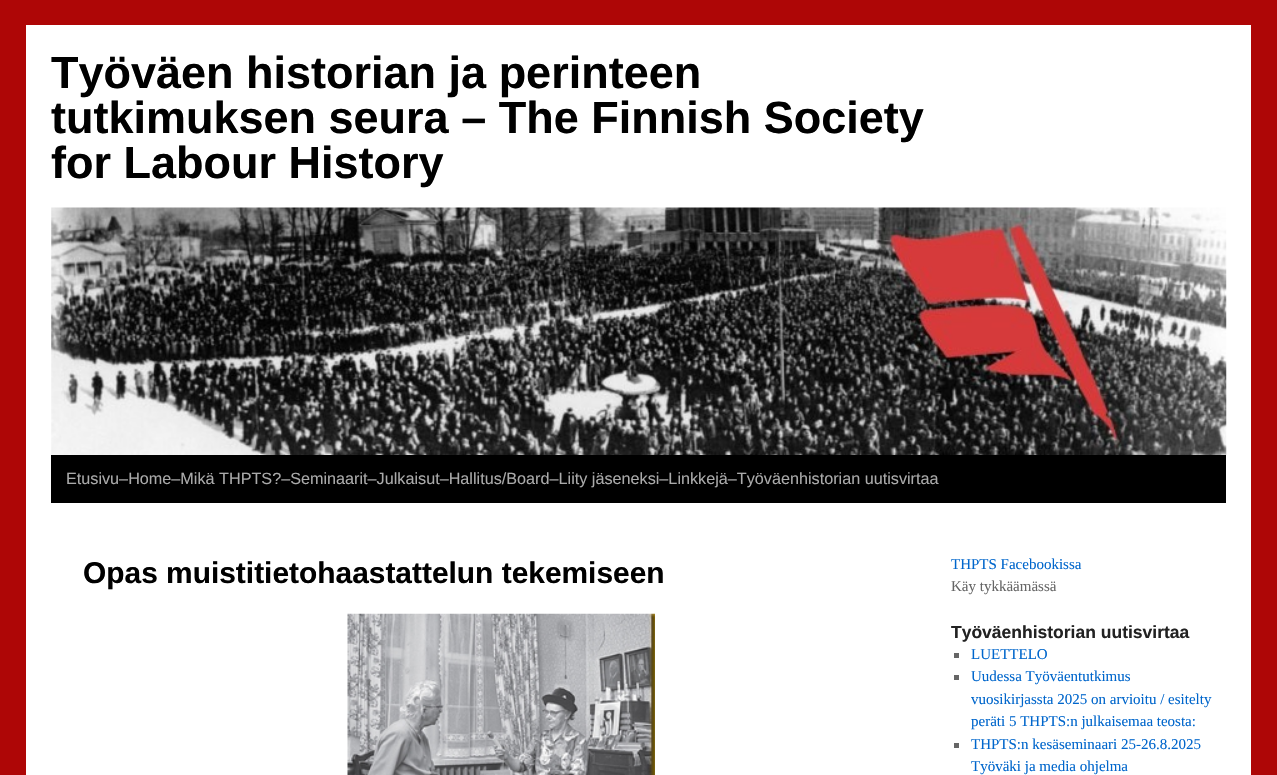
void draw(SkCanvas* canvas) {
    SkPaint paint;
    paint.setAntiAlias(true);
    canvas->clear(0xFFAE0606);
    paint.setColor(0xFFFFFFFF);
    canvas->drawRect(SkRect::MakeXYWH(26, 25, 1225, 750), paint);
    SkFont font1(fontMgr->matchFamilyStyle("Liberation Sans", SkFontStyle::Bold()), 45);
    font1.setSubpixel(true);
    paint.setColor(0xFF000000);
    canvas->drawString("Työväen historian ja perinteen", 51, 88, font1, paint);
    canvas->drawString("tutkimuksen seura – The Finnish Society", 51, 133, font1, paint);
    canvas->drawString("for Labour History", 51, 178, font1, paint);
    canvas->drawImageRect(SkImages::DeferredFromEncodedData(SkData::MakeFromFileName("img1.png")), SkRect::MakeXYWH(51, 207, 1176, 248), SkSamplingOptions());
    canvas->drawRect(SkRect::MakeXYWH(51, 455, 1175, 48), paint);
    SkFont font2(fontMgr->matchFamilyStyle("Liberation Sans", SkFontStyle::Normal()), 16.2f);
    font2.setSubpixel(true);
    paint.setColor(0xFFAAAAAA);
    canvas->drawString("Etusivu–Home–Mikä THPTS?–Seminaarit–Julkaisut–Hallitus/Board–Liity jäseneksi–Linkkejä–Työväenhistorian uutisvirtaa", 66, 484, font2, paint);
    SkFont font3(fontMgr->matchFamilyStyle("Liberation Sans", SkFontStyle::Bold()), 29.9f);
    font3.setSubpixel(true);
    paint.setColor(0xFF000000);
    canvas->drawString("Opas muistitietohaastattelun tekemiseen", 83, 583, font3, paint);
    canvas->drawImageRect(SkImages::DeferredFromEncodedData(SkData::MakeFromFileName("img2.png")), SkRect::MakeXYWH(347, 613, 308, 162), SkSamplingOptions());
    SkFont font4(fontMgr->matchFamilyStyle("Liberation Serif", SkFontStyle::Normal()), 15);
    font4.setSubpixel(true);
    paint.setColor(0xFF0066CC);
    canvas->drawString("THPTS Facebookissa", 951, 569, font4, paint);
    paint.setColor(0xFF666666);
    canvas->drawString("Käy tykkäämässä", 951, 591, font4, paint);
    SkFont font5(fontMgr->matchFamilyStyle("Liberation Sans", SkFontStyle::Bold()), 17.5f);
    font5.setSubpixel(true);
    paint.setColor(0xFF222222);
    canvas->drawString("Työväenhistorian uutisvirtaa", 951, 638, font5, paint);
    paint.setColor(0xFF666666);
    canvas->drawRect(SkRect::MakeXYWH(954, 653, 5, 5), paint);
    paint.setColor(0xFF0066CC);
    canvas->drawString("LUETTELO", 971, 659, font4, paint);
    paint.setColor(0xFF666666);
    canvas->drawRect(SkRect::MakeXYWH(954, 675, 5, 5), paint);
    paint.setColor(0xFF0066CC);
    canvas->drawString("Uudessa Työväentutkimus", 971, 681, font4, paint);
    canvas->drawString("vuosikirjassta 2025 on arvioitu / esitelty", 971, 704, font4, paint);
    canvas->drawString("peräti 5 THPTS:n julkaisemaa teosta:", 971, 726, font4, paint);
    paint.setColor(0xFF666666);
    canvas->drawRect(SkRect::MakeXYWH(954, 743, 5, 5), paint);
    paint.setColor(0xFF0066CC);
    canvas->drawString("THPTS:n kesäseminaari 25-26.8.2025", 971, 749, font4, paint);
    canvas->drawString("Työväki ja media ohjelma", 971, 771, font4, paint);
}
